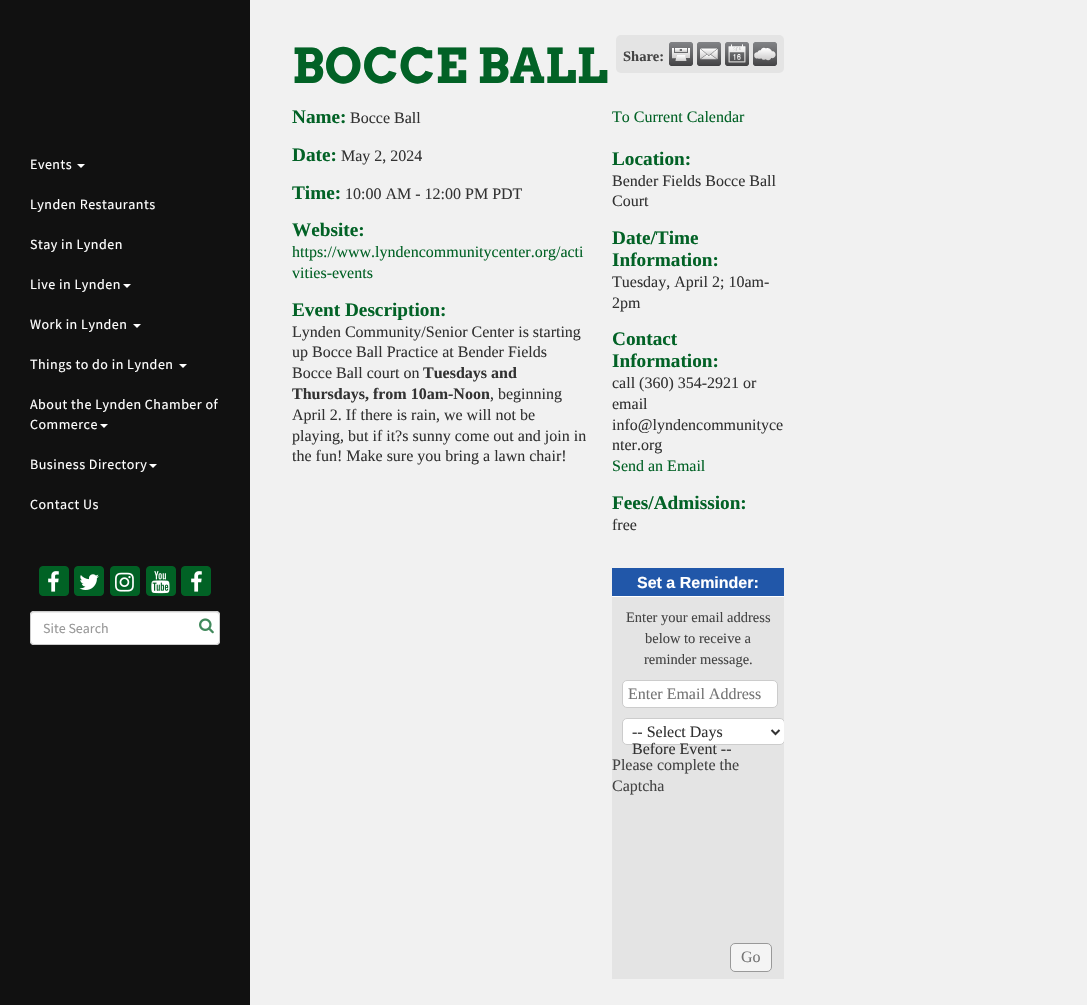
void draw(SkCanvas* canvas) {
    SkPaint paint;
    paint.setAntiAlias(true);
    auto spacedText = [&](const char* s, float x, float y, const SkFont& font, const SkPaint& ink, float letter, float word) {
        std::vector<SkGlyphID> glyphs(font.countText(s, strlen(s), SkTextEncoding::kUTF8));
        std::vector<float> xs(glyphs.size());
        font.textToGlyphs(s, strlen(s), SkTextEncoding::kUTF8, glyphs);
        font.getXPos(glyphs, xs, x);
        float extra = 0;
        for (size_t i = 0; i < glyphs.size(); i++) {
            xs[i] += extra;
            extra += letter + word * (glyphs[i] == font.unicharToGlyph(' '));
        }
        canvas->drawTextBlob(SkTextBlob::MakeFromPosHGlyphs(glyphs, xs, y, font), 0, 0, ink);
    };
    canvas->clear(0xFFF1F1F1);
    paint.setColor(0xFF111111);
    canvas->drawRect(SkRect::MakeXYWH(0, 0, 250, 1005), paint);
    SkFont font1(fontMgr->matchFamilyStyle("Source Sans Pro", SkFontStyle::Normal()), 14);
    font1.setSubpixel(true);
    paint.setColor(0xFFFFFFFF);
    spacedText("Events", 30, 169, font1, paint, 0.5f, 0);
    canvas->drawPath(SkPathBuilder().moveTo(77, 164).lineTo(85, 164).lineTo(81, 168).close().detach(), paint);
    spacedText("Lynden Restaurants", 30, 209, font1, paint, 0.5f, 0);
    spacedText("Stay in Lynden", 30, 249, font1, paint, 0.5f, 0);
    spacedText("Live in Lynden", 30, 289, font1, paint, 0.5f, 0);
    canvas->drawPath(SkPathBuilder().moveTo(123, 284).lineTo(131, 284).lineTo(127, 288).close().detach(), paint);
    spacedText("Work in Lynden", 30, 329, font1, paint, 0.5f, 0);
    canvas->drawPath(SkPathBuilder().moveTo(133, 324).lineTo(141, 324).lineTo(137, 328).close().detach(), paint);
    spacedText("Things to do in Lynden", 30, 369, font1, paint, 0.5f, 0);
    canvas->drawPath(SkPathBuilder().moveTo(179, 364).lineTo(187, 364).lineTo(183, 368).close().detach(), paint);
    spacedText("About the Lynden Chamber of", 30, 409, font1, paint, 0.5f, 0);
    spacedText("Commerce", 30, 429, font1, paint, 0.5f, 0);
    canvas->drawPath(SkPathBuilder().moveTo(100, 424).lineTo(108, 424).lineTo(104, 428).close().detach(), paint);
    spacedText("Business Directory", 30, 469, font1, paint, 0.5f, 0);
    canvas->drawPath(SkPathBuilder().moveTo(149, 464).lineTo(157, 464).lineTo(153, 468).close().detach(), paint);
    spacedText("Contact Us", 30, 509, font1, paint, 0.5f, 0);
    paint.setColor(0xFF016225);
    canvas->drawRoundRect(SkRect::MakeXYWH(39.5f, 566.5f, 29, 29), 3.5f, 3.5f, paint);
    paint.setStyle(SkPaint::kStroke_Style);
    paint.setStrokeWidth(1);
    canvas->drawRoundRect(SkRect::MakeXYWH(39.5f, 566.5f, 29, 29), 3.5f, 3.5f, paint);
    canvas->drawImageRect(SkImages::DeferredFromEncodedData(SkData::MakeFromFileName("img1.png")), SkRect::MakeXYWH(48, 571, 11, 21), SkSamplingOptions());
    paint.setStyle(SkPaint::kFill_Style);
    canvas->drawRoundRect(SkRect::MakeXYWH(74.5f, 566.5f, 29, 29), 3.5f, 3.5f, paint);
    paint.setStyle(SkPaint::kStroke_Style);
    canvas->drawRoundRect(SkRect::MakeXYWH(74.5f, 566.5f, 29, 29), 3.5f, 3.5f, paint);
    canvas->drawImageRect(SkImages::DeferredFromEncodedData(SkData::MakeFromFileName("img2.png")), SkRect::MakeXYWH(79, 574, 20, 16), SkSamplingOptions());
    paint.setStyle(SkPaint::kFill_Style);
    canvas->drawRoundRect(SkRect::MakeXYWH(110.5f, 566.5f, 29, 29), 3.5f, 3.5f, paint);
    paint.setStyle(SkPaint::kStroke_Style);
    canvas->drawRoundRect(SkRect::MakeXYWH(110.5f, 566.5f, 29, 29), 3.5f, 3.5f, paint);
    canvas->drawImageRect(SkImages::DeferredFromEncodedData(SkData::MakeFromFileName("img3.png")), SkRect::MakeXYWH(115, 572, 19, 20), SkSamplingOptions());
    paint.setStyle(SkPaint::kFill_Style);
    canvas->drawRoundRect(SkRect::MakeXYWH(146.5f, 566.5f, 29, 29), 3.5f, 3.5f, paint);
    paint.setStyle(SkPaint::kStroke_Style);
    canvas->drawRoundRect(SkRect::MakeXYWH(146.5f, 566.5f, 29, 29), 3.5f, 3.5f, paint);
    canvas->drawImageRect(SkImages::DeferredFromEncodedData(SkData::MakeFromFileName("img4.png")), SkRect::MakeXYWH(151, 571, 19, 23), SkSamplingOptions());
    paint.setStyle(SkPaint::kFill_Style);
    canvas->drawRoundRect(SkRect::MakeXYWH(181.5f, 566.5f, 29, 29), 3.5f, 3.5f, paint);
    paint.setStyle(SkPaint::kStroke_Style);
    canvas->drawRoundRect(SkRect::MakeXYWH(181.5f, 566.5f, 29, 29), 3.5f, 3.5f, paint);
    canvas->drawImageRect(SkImages::DeferredFromEncodedData(SkData::MakeFromFileName("img1.png")), SkRect::MakeXYWH(191, 571, 11, 21), SkSamplingOptions());
    paint.setStyle(SkPaint::kFill_Style);
    paint.setColor(0xFFFFFFFF);
    canvas->drawRoundRect(SkRect::MakeXYWH(30, 611, 190, 34), 4, 4, paint);
    paint.setColor(0xFFECECEC);
    canvas->drawPath(SkPathBuilder().moveTo(34, 613).lineTo(216, 613).cubicTo(218, 613, 219, 614, 219, 616).cubicTo(219, 614, 218, 612, 216, 612).lineTo(34, 612).cubicTo(32, 612, 31, 614, 31, 616).cubicTo(31, 614, 32, 613, 34, 613).close().detach(), paint);
    paint.setStyle(SkPaint::kStroke_Style);
    paint.setColor(0xFFCCCCCC);
    canvas->drawRoundRect(SkRect::MakeXYWH(30.5f, 611.5f, 189, 33), 3.5f, 3.5f, paint);
    paint.setStyle(SkPaint::kFill_Style);
    paint.setColor(0xFF999999);
    canvas->drawString("Site Search", 43, 633, font1, paint);
    canvas->drawImageRect(SkImages::DeferredFromEncodedData(SkData::MakeFromFileName("img5.png")), SkRect::MakeXYWH(199, 618, 15, 16), SkSamplingOptions());
    SkFont font2(fontMgr->matchFamilyStyle("Arvo", SkFontStyle::Bold()), 48);
    font2.setSubpixel(true);
    paint.setColor(0xFF026226);
    canvas->drawString("BOCCE BALL", 292, 83, font2, paint);
    paint.setColor(0xFFE4E4E4);
    canvas->drawRoundRect(SkRect::MakeXYWH(616, 35, 168, 38), 5, 5, paint);
    SkFont font3(fontMgr->matchFamilyStyle("Liberation Serif", SkFontStyle::Bold()), 14.5f);
    font3.setSubpixel(true);
    paint.setColor(0xFF444444);
    canvas->drawString("Share:", 623, 61, font3, paint);
    canvas->drawImageRect(SkImages::DeferredFromEncodedData(SkData::MakeFromFileName("img6.png")), SkRect::MakeXYWH(669, 42, 24, 24), SkSamplingOptions());
    canvas->drawImageRect(SkImages::DeferredFromEncodedData(SkData::MakeFromFileName("img7.png")), SkRect::MakeXYWH(697, 42, 24, 24), SkSamplingOptions());
    canvas->drawImageRect(SkImages::DeferredFromEncodedData(SkData::MakeFromFileName("img8.png")), SkRect::MakeXYWH(725, 42, 24, 24), SkSamplingOptions());
    canvas->drawImageRect(SkImages::DeferredFromEncodedData(SkData::MakeFromFileName("img9.png")), SkRect::MakeXYWH(753, 42, 24, 24), SkSamplingOptions());
    SkFont font4(fontMgr->matchFamilyStyle("Liberation Serif", SkFontStyle::Bold()), 19.25f);
    font4.setSubpixel(true);
    paint.setColor(0xFF026226);
    canvas->drawString("Name:", 292, 123, font4, paint);
    SkFont font5(fontMgr->matchFamilyStyle("Liberation Serif", SkFontStyle::Normal()), 16);
    font5.setSubpixel(true);
    paint.setColor(0xFF333333);
    canvas->drawString("Bocce Ball", 350, 123, font5, paint);
    paint.setColor(0xFF026226);
    canvas->drawString("Date:", 292, 161, font4, paint);
    paint.setColor(0xFF333333);
    canvas->drawString("May 2, 2024", 341, 161, font5, paint);
    paint.setColor(0xFF026226);
    canvas->drawString("Time:", 292, 199, font4, paint);
    paint.setColor(0xFF333333);
    canvas->drawString("10:00 AM - 12:00 PM PDT", 345, 199, font5, paint);
    paint.setColor(0xFF026226);
    canvas->drawString("Website:", 292, 236, font4, paint);
    canvas->drawString("https://www.lyndencommunitycenter.org/acti", 292, 257, font5, paint);
    canvas->drawString("vities-events", 292, 278, font5, paint);
    canvas->drawString("Event Description:", 292, 316, font4, paint);
    paint.setColor(0xFF333333);
    canvas->drawString("Lynden Community/Senior Center is starting", 292, 337, font5, paint);
    canvas->drawString("up Bocce Ball Practice at Bender Fields", 292, 357, font5, paint);
    canvas->drawString("Bocce Ball court on", 292, 378, font5, paint);
    SkFont font6(fontMgr->matchFamilyStyle("Liberation Serif", SkFontStyle::Bold()), 16);
    font6.setSubpixel(true);
    canvas->drawString("Tuesdays and", 423, 378, font6, paint);
    canvas->drawString("Thursdays, from 10am-Noon", 292, 399, font6, paint);
    canvas->drawString(", beginning", 490, 399, font5, paint);
    canvas->drawString("April 2. If there is rain, we will not be", 292, 420, font5, paint);
    canvas->drawString("playing, but if it?s sunny come out and join in", 292, 441, font5, paint);
    canvas->drawString("the fun! Make sure you bring a lawn chair!", 292, 461, font5, paint);
    paint.setColor(0xFF026226);
    canvas->drawString("To Current Calendar", 612, 122, font5, paint);
    canvas->drawString("Location:", 612, 165, font4, paint);
    paint.setColor(0xFF333333);
    canvas->drawString("Bender Fields Bocce Ball", 612, 186, font5, paint);
    canvas->drawString("Court", 612, 206, font5, paint);
    paint.setColor(0xFF026226);
    canvas->drawString("Date/Time", 612, 244, font4, paint);
    canvas->drawString("Information:", 612, 266, font4, paint);
    paint.setColor(0xFF333333);
    canvas->drawString("Tuesday, April 2; 10am-", 612, 287, font5, paint);
    canvas->drawString("2pm", 612, 308, font5, paint);
    paint.setColor(0xFF026226);
    canvas->drawString("Contact", 612, 345, font4, paint);
    canvas->drawString("Information:", 612, 367, font4, paint);
    paint.setColor(0xFF333333);
    canvas->drawString("call (360) 354-2921 or", 612, 388, font5, paint);
    canvas->drawString("email", 612, 409, font5, paint);
    canvas->drawString("info@lyndencommunityce", 612, 430, font5, paint);
    canvas->drawString("nter.org", 612, 450, font5, paint);
    paint.setColor(0xFF026226);
    canvas->drawString("Send an Email", 612, 471, font5, paint);
    canvas->drawString("Fees/Admission:", 612, 509, font4, paint);
    paint.setColor(0xFF333333);
    canvas->drawString("free", 612, 530, font5, paint);
    paint.setColor(0xFFE4E4E4);
    canvas->drawRect(SkRect::MakeXYWH(612, 597, 172, 382), paint);
    paint.setColor(0xFF2157A9);
    canvas->drawRect(SkRect::MakeXYWH(612, 568, 172, 28), paint);
    paint.setColor(0xFFFFFFFF);
    canvas->drawRect(SkRect::MakeXYWH(612, 596, 172, 1), paint);
    SkFont font7(fontMgr->matchFamilyStyle("Liberation Sans", SkFontStyle::Bold()), 16);
    font7.setSubpixel(true);
    canvas->drawString("Set a Reminder:", 637, 588, font7, paint);
    SkFont font8(fontMgr->matchFamilyStyle("Liberation Serif", SkFontStyle::Normal()), 14.5f);
    font8.setSubpixel(true);
    paint.setColor(0xFF444444);
    canvas->drawString("Enter your email address", 626, 622, font8, paint);
    canvas->drawString("below to receive a", 645, 643, font8, paint);
    canvas->drawString("reminder message.", 644, 664, font8, paint);
    paint.setColor(0xFFFFFFFF);
    canvas->drawRoundRect(SkRect::MakeXYWH(622.5f, 680.5f, 155, 27), 4.5f, 4.5f, paint);
    paint.setStyle(SkPaint::kStroke_Style);
    paint.setColor(0xFFCCCCCC);
    canvas->drawRoundRect(SkRect::MakeXYWH(622.5f, 680.5f, 155, 27), 4.5f, 4.5f, paint);
    paint.setStyle(SkPaint::kFill_Style);
    paint.setColor(0xFF757575);
    canvas->drawString("Enter Email Address", 628, 699, font5, paint);
    canvas->save();
    canvas->clipRect(SkRect::MakeXYWH(612, 597, 172, 382));
    paint.setColor(0xFFFFFFFF);
    canvas->drawRoundRect(SkRect::MakeXYWH(622.5f, 718.5f, 162, 26), 4.5f, 4.5f, paint);
    paint.setStyle(SkPaint::kStroke_Style);
    paint.setColor(0xFFCCCCCC);
    canvas->drawRoundRect(SkRect::MakeXYWH(622.5f, 718.5f, 162, 26), 4.5f, 4.5f, paint);
    canvas->restore();
    paint.setStrokeWidth(2);
    paint.setColor(0xFF333333);
    canvas->drawPath(SkPathBuilder().moveTo(771.5f, 730).lineTo(775.5f, 734).lineTo(779.5f, 730).detach(), paint);
    paint.setStyle(SkPaint::kFill_Style);
    canvas->drawString("-- Select Days", 632, 737, font5, paint);
    canvas->drawString("Before Event --", 632, 754, font5, paint);
    paint.setColor(0xFF444444);
    canvas->drawString("Please complete the", 612, 770, font5, paint);
    canvas->drawString("Captcha", 612, 791, font5, paint);
    paint.setColor(0xFFF4F4F4);
    canvas->drawRoundRect(SkRect::MakeXYWH(730.5f, 943.5f, 41, 28), 4.5f, 4.5f, paint);
    paint.setStyle(SkPaint::kStroke_Style);
    paint.setStrokeWidth(1);
    paint.setColor(0xFF999999);
    canvas->drawRoundRect(SkRect::MakeXYWH(730.5f, 943.5f, 41, 28), 4.5f, 4.5f, paint);
    paint.setStyle(SkPaint::kFill_Style);
    paint.setColor(0xFF757575);
    canvas->drawString("Go", 741, 962, font5, paint);
}
